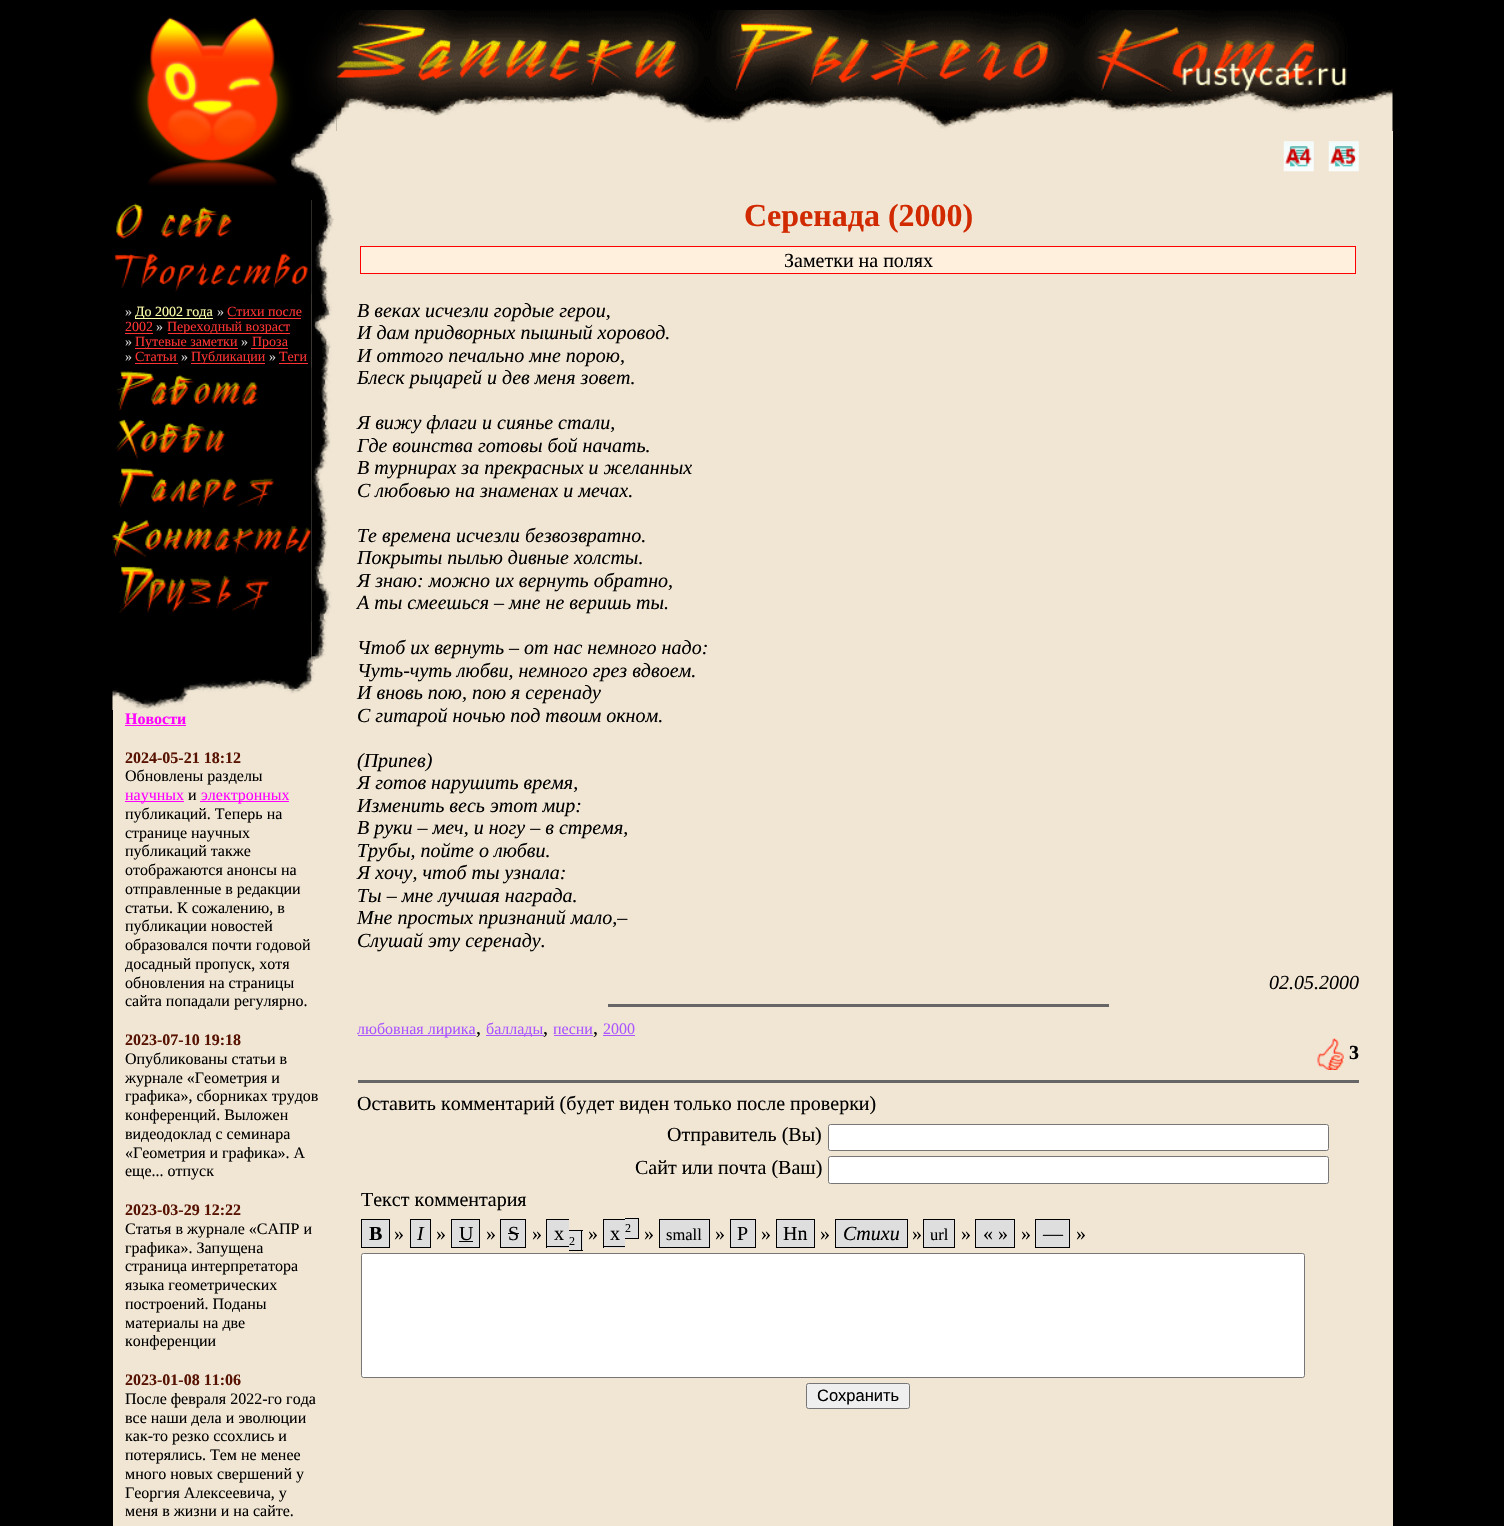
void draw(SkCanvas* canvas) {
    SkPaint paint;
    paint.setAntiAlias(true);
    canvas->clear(0xFF000000);
    paint.setColor(0xFFF1E6D4);
    canvas->drawRect(SkRect::MakeXYWH(113, 200, 223, 1326), paint);
    canvas->drawRect(SkRect::MakeXYWH(336, 131, 1057, 1395), paint);
    canvas->drawImageRect(SkImages::DeferredFromEncodedData(SkData::MakeFromFileName("img1.png")), SkRect::MakeXYWH(113, 10, 224, 190), SkSamplingOptions());
    paint.setColor(0xFF000000);
    canvas->drawRect(SkRect::MakeXYWH(113, 200, 198, 455), paint);
    canvas->drawImageRect(SkImages::DeferredFromEncodedData(SkData::MakeFromFileName("img2.png")), SkRect::MakeXYWH(116, 200, 196, 43), SkSamplingOptions());
    canvas->drawImageRect(SkImages::DeferredFromEncodedData(SkData::MakeFromFileName("img3.png")), SkRect::MakeXYWH(114, 242, 198, 52), SkSamplingOptions());
    SkFont font1(fontMgr->matchFamilyStyle("Liberation Serif", SkFontStyle::Normal()), 14);
    font1.setSubpixel(true);
    paint.setColor(0xFFD0D0D0);
    canvas->drawString("»", 125, 316, font1, paint);
    paint.setColor(0xFFFFFFAA);
    canvas->drawRect(SkRect::MakeXYWH(135, 318, 78, 1), paint);
    canvas->drawString("До 2002 года", 135, 316, font1, paint);
    paint.setColor(0xFFD0D0D0);
    canvas->drawString("»", 217, 316, font1, paint);
    paint.setColor(0xFFFF3333);
    canvas->drawString("Стихи после", 227, 316, font1, paint);
    canvas->drawRect(SkRect::MakeXYWH(228, 318, 73, 1), paint);
    canvas->drawString("2002", 125, 331, font1, paint);
    canvas->drawRect(SkRect::MakeXYWH(125, 333, 28, 1), paint);
    paint.setColor(0xFFD0D0D0);
    canvas->drawString("»", 156, 331, font1, paint);
    paint.setColor(0xFFFF3333);
    canvas->drawRect(SkRect::MakeXYWH(168, 333, 122, 1), paint);
    canvas->drawString("Переходный возраст", 167, 331, font1, paint);
    paint.setColor(0xFFD0D0D0);
    canvas->drawString("»", 125, 346, font1, paint);
    paint.setColor(0xFFFF3333);
    canvas->drawRect(SkRect::MakeXYWH(135, 348, 103, 1), paint);
    canvas->drawString("Путевые заметки", 135, 346, font1, paint);
    paint.setColor(0xFFD0D0D0);
    canvas->drawString("»", 241, 346, font1, paint);
    paint.setColor(0xFFFF3333);
    canvas->drawRect(SkRect::MakeXYWH(251, 348, 37, 1), paint);
    canvas->drawString("Проза", 252, 346, font1, paint);
    paint.setColor(0xFFD0D0D0);
    canvas->drawString("»", 125, 361, font1, paint);
    paint.setColor(0xFFFF3333);
    canvas->drawString("Статьи", 135, 361, font1, paint);
    canvas->drawRect(SkRect::MakeXYWH(135, 363, 43, 1), paint);
    paint.setColor(0xFFD0D0D0);
    canvas->drawString("»", 181, 361, font1, paint);
    paint.setColor(0xFFFF3333);
    canvas->drawRect(SkRect::MakeXYWH(191, 363, 74, 1), paint);
    canvas->drawString("Публикации", 191, 361, font1, paint);
    paint.setColor(0xFFD0D0D0);
    canvas->drawString("»", 269, 361, font1, paint);
    paint.setColor(0xFFFF3333);
    canvas->drawString("Теги", 279, 361, font1, paint);
    canvas->drawRect(SkRect::MakeXYWH(279, 363, 29, 1), paint);
    canvas->drawImageRect(SkImages::DeferredFromEncodedData(SkData::MakeFromFileName("img4.png")), SkRect::MakeXYWH(116, 367, 196, 46), SkSamplingOptions());
    canvas->drawImageRect(SkImages::DeferredFromEncodedData(SkData::MakeFromFileName("img5.png")), SkRect::MakeXYWH(115, 412, 197, 51), SkSamplingOptions());
    canvas->drawImageRect(SkImages::DeferredFromEncodedData(SkData::MakeFromFileName("img6.png")), SkRect::MakeXYWH(118, 462, 194, 51), SkSamplingOptions());
    canvas->drawImageRect(SkImages::DeferredFromEncodedData(SkData::MakeFromFileName("img7.png")), SkRect::MakeXYWH(112, 512, 200, 50), SkSamplingOptions());
    canvas->drawImageRect(SkImages::DeferredFromEncodedData(SkData::MakeFromFileName("img8.png")), SkRect::MakeXYWH(119, 561, 193, 61), SkSamplingOptions());
    canvas->drawImageRect(SkImages::DeferredFromEncodedData(SkData::MakeFromFileName("img9.png")), SkRect::MakeXYWH(311, 200, 23, 482), SkSamplingOptions());
    canvas->drawImageRect(SkImages::DeferredFromEncodedData(SkData::MakeFromFileName("img10.png")), SkRect::MakeXYWH(112, 655, 200, 55), SkSamplingOptions());
    SkFont font2(fontMgr->matchFamilyStyle("Liberation Serif", SkFontStyle::Bold()), 16);
    font2.setSubpixel(true);
    paint.setColor(0xFFFF00FF);
    canvas->drawString("Новости", 125, 724, font2, paint);
    canvas->drawRect(SkRect::MakeXYWH(125, 725, 61, 1), paint);
    paint.setColor(0xFF581201);
    canvas->drawString("2024-05-21 18:12", 125, 763, font2, paint);
    SkFont font3(fontMgr->matchFamilyStyle("Liberation Serif", SkFontStyle::Normal()), 16);
    font3.setSubpixel(true);
    paint.setColor(0xFF000000);
    canvas->drawString("Обновлены разделы", 125, 781, font3, paint);
    paint.setColor(0xFFFF00FF);
    canvas->drawRect(SkRect::MakeXYWH(125, 801, 59, 1), paint);
    canvas->drawString("научных", 125, 800, font3, paint);
    paint.setColor(0xFF000000);
    canvas->drawString("и", 188, 800, font3, paint);
    paint.setColor(0xFFFF00FF);
    canvas->drawRect(SkRect::MakeXYWH(200, 801, 89, 1), paint);
    canvas->drawString("электронных", 201, 800, font3, paint);
    paint.setColor(0xFF000000);
    canvas->drawString("публикаций. Теперь на", 125, 819, font3, paint);
    canvas->drawString("странице научных", 125, 838, font3, paint);
    canvas->drawString("публикаций также", 125, 856, font3, paint);
    canvas->drawString("отображаются анонсы на", 125, 875, font3, paint);
    canvas->drawString("отправленные в редакции", 125, 894, font3, paint);
    canvas->drawString("статьи. К сожалению, в", 125, 913, font3, paint);
    canvas->drawString("публикации новостей", 125, 931, font3, paint);
    canvas->drawString("образовался почти годовой", 125, 950, font3, paint);
    canvas->drawString("досадный пропуск, хотя", 125, 969, font3, paint);
    canvas->drawString("обновления на страницы", 125, 988, font3, paint);
    canvas->drawString("сайта попадали регулярно.", 125, 1006, font3, paint);
    paint.setColor(0xFF581201);
    canvas->drawString("2023-07-10 19:18", 125, 1045, font2, paint);
    paint.setColor(0xFF000000);
    canvas->drawString("Опубликованы статьи в", 125, 1064, font3, paint);
    canvas->drawString("журнале «Геометрия и", 125, 1083, font3, paint);
    canvas->drawString("графика», сборниках трудов", 125, 1101, font3, paint);
    canvas->drawString("конференций. Выложен", 125, 1120, font3, paint);
    canvas->drawString("видеодоклад с семинара", 125, 1139, font3, paint);
    canvas->drawString("«Геометрия и графика». А", 125, 1158, font3, paint);
    canvas->drawString("еще... отпуск", 125, 1176, font3, paint);
    paint.setColor(0xFF581201);
    canvas->drawString("2023-03-29 12:22", 125, 1215, font2, paint);
    paint.setColor(0xFF000000);
    canvas->drawString("Статья в журнале «САПР и", 125, 1234, font3, paint);
    canvas->drawString("графика». Запущена", 125, 1253, font3, paint);
    canvas->drawString("страница интерпретатора", 125, 1271, font3, paint);
    canvas->drawString("языка геометрических", 125, 1290, font3, paint);
    canvas->drawString("построений. Поданы", 125, 1309, font3, paint);
    canvas->drawString("материалы на две", 125, 1328, font3, paint);
    canvas->drawString("конференции", 125, 1346, font3, paint);
    paint.setColor(0xFF581201);
    canvas->drawString("2023-01-08 11:06", 125, 1385, font2, paint);
    paint.setColor(0xFF000000);
    canvas->drawString("После февраля 2022-го года", 125, 1404, font3, paint);
    canvas->drawString("все наши дела и эволюции", 125, 1423, font3, paint);
    canvas->drawString("как-то резко ссохлись и", 125, 1441, font3, paint);
    canvas->drawString("потерялись. Тем не менее", 125, 1460, font3, paint);
    canvas->drawString("много новых свершений у", 125, 1479, font3, paint);
    canvas->drawString("Георгия Алексеевича, у", 125, 1498, font3, paint);
    canvas->drawString("меня в жизни и на сайте.", 125, 1516, font3, paint);
    canvas->drawImageRect(SkImages::DeferredFromEncodedData(SkData::MakeFromFileName("img11.png")), SkRect::MakeXYWH(336, 10, 1057, 121), SkSamplingOptions());
    canvas->drawImageRect(SkImages::DeferredFromEncodedData(SkData::MakeFromFileName("img12.png")), SkRect::MakeXYWH(1283, 141, 31, 31), SkSamplingOptions());
    canvas->drawImageRect(SkImages::DeferredFromEncodedData(SkData::MakeFromFileName("img13.png")), SkRect::MakeXYWH(1328, 141, 31, 31), SkSamplingOptions());
    SkFont font4(fontMgr->matchFamilyStyle("Liberation Serif", SkFontStyle::Bold()), 32);
    font4.setSubpixel(true);
    paint.setColor(0xFFD12A00);
    canvas->drawString("Серенада (2000)", 744, 226, font4, paint);
    paint.setColor(0xFFFFEFDD);
    canvas->drawRect(SkRect::MakeXYWH(360.5f, 246.5f, 995, 27), paint);
    paint.setStyle(SkPaint::kStroke_Style);
    paint.setStrokeWidth(1);
    paint.setColor(0xFFFF0000);
    canvas->drawRect(SkRect::MakeXYWH(360.5f, 246.5f, 995, 27), paint);
    SkFont font5(fontMgr->matchFamilyStyle("Liberation Serif", SkFontStyle::Normal()), 20);
    font5.setSubpixel(true);
    paint.setStyle(SkPaint::kFill_Style);
    paint.setColor(0xFF000000);
    canvas->drawString("Заметки на полях", 784, 267, font5, paint);
    SkFont font6(fontMgr->matchFamilyStyle("Liberation Serif", SkFontStyle::Italic()), 20);
    font6.setSubpixel(true);
    canvas->drawString("В веках исчезли гордые герои,", 357, 317, font6, paint);
    canvas->drawString("И дам придворных пышный хоровод.", 357, 339, font6, paint);
    canvas->drawString("И оттого печально мне порою,", 357, 362, font6, paint);
    canvas->drawString("Блеск рыцарей и дев меня зовет.", 357, 384, font6, paint);
    canvas->drawString("Я вижу флаги и сиянье стали,", 357, 429, font6, paint);
    canvas->drawString("Где воинства готовы бой начать.", 357, 452, font6, paint);
    canvas->drawString("В турнирах за прекрасных и желанных", 357, 474, font6, paint);
    canvas->drawString("С любовью на знаменах и мечах.", 357, 497, font6, paint);
    canvas->drawString("Те времена исчезли безвозвратно.", 357, 542, font6, paint);
    canvas->drawString("Покрыты пылью дивные холсты.", 357, 564, font6, paint);
    canvas->drawString("Я знаю: можно их вернуть обратно,", 357, 587, font6, paint);
    canvas->drawString("А ты смеешься – мне не веришь ты.", 357, 609, font6, paint);
    canvas->drawString("Чтоб их вернуть – от нас немного надо:", 357, 654, font6, paint);
    canvas->drawString("Чуть-чуть любви, немного грез вдвоем.", 357, 677, font6, paint);
    canvas->drawString("И вновь пою, пою я серенаду", 357, 699, font6, paint);
    canvas->drawString("С гитарой ночью под твоим окном.", 357, 722, font6, paint);
    canvas->drawString("(Припев)", 357, 767, font6, paint);
    canvas->drawString("Я готов нарушить время,", 357, 789, font6, paint);
    canvas->drawString("Изменить весь этот мир:", 357, 812, font6, paint);
    canvas->drawString("В руки – меч, и ногу – в стремя,", 357, 834, font6, paint);
    canvas->drawString("Трубы, пойте о любви.", 357, 857, font6, paint);
    canvas->drawString("Я хочу, чтоб ты узнала:", 357, 879, font6, paint);
    canvas->drawString("Ты – мне лучшая награда.", 357, 902, font6, paint);
    canvas->drawString("Мне простых признаний мало,–", 357, 924, font6, paint);
    canvas->drawString("Слушай эту серенаду.", 357, 947, font6, paint);
    canvas->drawString("02.05.2000", 1269, 989, font6, paint);
    paint.setColor(0xFF666666);
    canvas->drawRect(SkRect::MakeXYWH(608, 1004, 501, 3), paint);
    paint.setColor(0xFFAA55FF);
    canvas->drawRect(SkRect::MakeXYWH(358, 1035, 118, 1), paint);
    canvas->drawString("любовная лирика", 357, 1034, font3, paint);
    paint.setColor(0xFF000000);
    canvas->drawString(",", 476, 1034, font5, paint);
    paint.setColor(0xFFAA55FF);
    canvas->drawRect(SkRect::MakeXYWH(486, 1035, 58, 1), paint);
    canvas->drawString("баллады", 486, 1034, font3, paint);
    paint.setColor(0xFF000000);
    canvas->drawString(",", 543, 1034, font5, paint);
    paint.setColor(0xFFAA55FF);
    canvas->drawString("песни", 553, 1034, font3, paint);
    canvas->drawRect(SkRect::MakeXYWH(554, 1035, 39, 1), paint);
    paint.setColor(0xFF000000);
    canvas->drawString(",", 593, 1034, font5, paint);
    paint.setColor(0xFFAA55FF);
    canvas->drawString("2000", 603, 1034, font3, paint);
    canvas->drawRect(SkRect::MakeXYWH(603, 1035, 32, 1), paint);
    canvas->drawImageRect(SkImages::DeferredFromEncodedData(SkData::MakeFromFileName("img14.png")), SkRect::MakeXYWH(1317, 1038, 27, 32), SkSamplingOptions());
    SkFont font7(fontMgr->matchFamilyStyle("Liberation Serif", SkFontStyle::Bold()), 20);
    font7.setSubpixel(true);
    paint.setColor(0xFF000000);
    canvas->drawString("3", 1349, 1059, font7, paint);
    paint.setColor(0xFF666666);
    canvas->drawRect(SkRect::MakeXYWH(358, 1080, 1001, 3), paint);
    paint.setColor(0xFF000000);
    canvas->drawString("Оставить комментарий (будет виден только после проверки)", 357, 1110, font5, paint);
    canvas->drawString("Отправитель (Вы)", 667, 1141, font5, paint);
    paint.setColor(0xFFFFFFFF);
    canvas->drawRoundRect(SkRect::MakeXYWH(828.5f, 1124.5f, 500, 26), 2, 2, paint);
    paint.setStyle(SkPaint::kStroke_Style);
    paint.setColor(0xFF767676);
    canvas->drawRoundRect(SkRect::MakeXYWH(828.5f, 1124.5f, 500, 26), 2, 2, paint);
    paint.setStyle(SkPaint::kFill_Style);
    paint.setColor(0xFF000000);
    canvas->drawString("Сайт или почта (Ваш)", 635, 1174, font5, paint);
    paint.setColor(0xFFFFFFFF);
    canvas->drawRoundRect(SkRect::MakeXYWH(828.5f, 1156.5f, 500, 27), 2, 2, paint);
    paint.setStyle(SkPaint::kStroke_Style);
    paint.setColor(0xFF767676);
    canvas->drawRoundRect(SkRect::MakeXYWH(828.5f, 1156.5f, 500, 27), 2, 2, paint);
    paint.setStyle(SkPaint::kFill_Style);
    paint.setColor(0xFF000000);
    canvas->drawString("Текст комментария", 361, 1206, font5, paint);
    paint.setColor(0xFFDEDEDE);
    canvas->drawRect(SkRect::MakeXYWH(361.5f, 1219.5f, 28, 28), paint);
    paint.setStyle(SkPaint::kStroke_Style);
    paint.setColor(0xFF000000);
    canvas->drawRect(SkRect::MakeXYWH(361.5f, 1219.5f, 28, 28), paint);
    paint.setStyle(SkPaint::kFill_Style);
    canvas->drawString("B", 369, 1240, font7, paint);
    canvas->drawString("»", 394, 1240, font5, paint);
    paint.setColor(0xFFDEDEDE);
    canvas->drawRect(SkRect::MakeXYWH(410.5f, 1219.5f, 20, 28), paint);
    paint.setStyle(SkPaint::kStroke_Style);
    paint.setColor(0xFF000000);
    canvas->drawRect(SkRect::MakeXYWH(410.5f, 1219.5f, 20, 28), paint);
    paint.setStyle(SkPaint::kFill_Style);
    canvas->drawString("I", 417, 1240, font6, paint);
    canvas->drawString("»", 436, 1240, font5, paint);
    paint.setColor(0xFFDEDEDE);
    canvas->drawRect(SkRect::MakeXYWH(451.5f, 1219.5f, 28, 28), paint);
    paint.setStyle(SkPaint::kStroke_Style);
    paint.setColor(0xFF000000);
    canvas->drawRect(SkRect::MakeXYWH(451.5f, 1219.5f, 28, 28), paint);
    paint.setStyle(SkPaint::kFill_Style);
    canvas->drawString("U", 459, 1240, font5, paint);
    canvas->drawRect(SkRect::MakeXYWH(459, 1241, 14, 1), paint);
    canvas->drawString("»", 486, 1240, font5, paint);
    paint.setColor(0xFFDEDEDE);
    canvas->drawRect(SkRect::MakeXYWH(500.5f, 1219.5f, 25, 28), paint);
    paint.setStyle(SkPaint::kStroke_Style);
    paint.setColor(0xFF000000);
    canvas->drawRect(SkRect::MakeXYWH(500.5f, 1219.5f, 25, 28), paint);
    paint.setStyle(SkPaint::kFill_Style);
    canvas->drawString("S", 508, 1240, font5, paint);
    canvas->drawRect(SkRect::MakeXYWH(508, 1233, 11, 1), paint);
    canvas->drawString("»", 532, 1240, font5, paint);
    paint.setColor(0xFFDEDEDE);
    canvas->drawRect(SkRect::MakeXYWH(547, 1220, 22, 28), paint);
    paint.setColor(0xFF000000);
    canvas->drawString("x", 554, 1240, font5, paint);
    canvas->drawRect(SkRect::MakeXYWH(546, 1219, 23, 1), paint);
    canvas->drawRect(SkRect::MakeXYWH(546, 1246, 23, 1), paint);
    canvas->drawRect(SkRect::MakeXYWH(546, 1219, 1, 29), paint);
    canvas->drawRect(SkRect::MakeXYWH(569, 1230, 14, 1), paint);
    canvas->drawString("»", 588, 1240, font5, paint);
    paint.setColor(0xFFDEDEDE);
    canvas->drawRect(SkRect::MakeXYWH(604, 1220, 21, 28), paint);
    paint.setColor(0xFF000000);
    canvas->drawString("x", 610, 1240, font5, paint);
    canvas->drawRect(SkRect::MakeXYWH(603, 1246, 22, 1), paint);
    canvas->drawRect(SkRect::MakeXYWH(603, 1219, 22, 1), paint);
    canvas->drawRect(SkRect::MakeXYWH(603, 1219, 1, 29), paint);
    canvas->drawRect(SkRect::MakeXYWH(625, 1218, 14, 1), paint);
    canvas->drawRect(SkRect::MakeXYWH(638, 1218, 1, 21), paint);
    canvas->drawRect(SkRect::MakeXYWH(625, 1238, 14, 1), paint);
    paint.setColor(0xFFDEDEDE);
    canvas->drawRect(SkRect::MakeXYWH(625, 1219, 13, 19), paint);
    SkFont font8(fontMgr->matchFamilyStyle("Liberation Serif", SkFontStyle::Normal()), 12);
    font8.setSubpixel(true);
    paint.setColor(0xFF000000);
    canvas->drawString("2", 625, 1232, font8, paint);
    canvas->drawString("»", 644, 1240, font5, paint);
    paint.setColor(0xFFDEDEDE);
    canvas->drawRect(SkRect::MakeXYWH(659.5f, 1219.5f, 50, 28), paint);
    paint.setStyle(SkPaint::kStroke_Style);
    paint.setColor(0xFF000000);
    canvas->drawRect(SkRect::MakeXYWH(659.5f, 1219.5f, 50, 28), paint);
    SkFont font9(fontMgr->matchFamilyStyle("Liberation Serif", SkFontStyle::Normal()), 16.5f);
    font9.setSubpixel(true);
    paint.setStyle(SkPaint::kFill_Style);
    canvas->drawString("small", 666, 1240, font9, paint);
    canvas->drawString("»", 715, 1240, font5, paint);
    paint.setColor(0xFFDEDEDE);
    canvas->drawRect(SkRect::MakeXYWH(730.5f, 1219.5f, 25, 28), paint);
    paint.setStyle(SkPaint::kStroke_Style);
    paint.setColor(0xFF000000);
    canvas->drawRect(SkRect::MakeXYWH(730.5f, 1219.5f, 25, 28), paint);
    paint.setStyle(SkPaint::kFill_Style);
    canvas->drawString("P", 737, 1240, font5, paint);
    canvas->drawString("»", 761, 1240, font5, paint);
    paint.setColor(0xFFDEDEDE);
    canvas->drawRect(SkRect::MakeXYWH(776.5f, 1219.5f, 38, 28), paint);
    paint.setStyle(SkPaint::kStroke_Style);
    paint.setColor(0xFF000000);
    canvas->drawRect(SkRect::MakeXYWH(776.5f, 1219.5f, 38, 28), paint);
    paint.setStyle(SkPaint::kFill_Style);
    canvas->drawString("Hn", 783, 1240, font5, paint);
    canvas->drawString("»", 820, 1240, font5, paint);
    paint.setColor(0xFFDEDEDE);
    canvas->drawRect(SkRect::MakeXYWH(835.5f, 1219.5f, 72, 28), paint);
    paint.setStyle(SkPaint::kStroke_Style);
    paint.setColor(0xFF000000);
    canvas->drawRect(SkRect::MakeXYWH(835.5f, 1219.5f, 72, 28), paint);
    paint.setStyle(SkPaint::kFill_Style);
    canvas->drawString("Стихи", 843, 1240, font6, paint);
    canvas->drawString("»", 912, 1240, font5, paint);
    paint.setColor(0xFFDEDEDE);
    canvas->drawRect(SkRect::MakeXYWH(923.5f, 1219.5f, 31, 28), paint);
    paint.setStyle(SkPaint::kStroke_Style);
    paint.setColor(0xFF000000);
    canvas->drawRect(SkRect::MakeXYWH(923.5f, 1219.5f, 31, 28), paint);
    paint.setStyle(SkPaint::kFill_Style);
    canvas->drawString("url", 930, 1240, font9, paint);
    canvas->drawString("»", 961, 1240, font5, paint);
    paint.setColor(0xFFDEDEDE);
    canvas->drawRect(SkRect::MakeXYWH(975.5f, 1219.5f, 39, 28), paint);
    paint.setStyle(SkPaint::kStroke_Style);
    paint.setColor(0xFF000000);
    canvas->drawRect(SkRect::MakeXYWH(975.5f, 1219.5f, 39, 28), paint);
    paint.setStyle(SkPaint::kFill_Style);
    canvas->drawString("« »", 983, 1240, font5, paint);
    canvas->drawString("»", 1021, 1240, font5, paint);
    paint.setColor(0xFFDEDEDE);
    canvas->drawRect(SkRect::MakeXYWH(1035.5f, 1219.5f, 34, 28), paint);
    paint.setStyle(SkPaint::kStroke_Style);
    paint.setColor(0xFF000000);
    canvas->drawRect(SkRect::MakeXYWH(1035.5f, 1219.5f, 34, 28), paint);
    paint.setStyle(SkPaint::kFill_Style);
    canvas->drawString("—", 1043, 1240, font5, paint);
    canvas->drawString("»", 1076, 1240, font5, paint);
    paint.setColor(0xFFDEDEDE);
    canvas->drawRect(SkRect::MakeXYWH(569, 1231, 14, 19), paint);
    paint.setColor(0xFF000000);
    canvas->drawString("2", 569, 1245, font8, paint);
    canvas->drawRect(SkRect::MakeXYWH(581, 1230, 1, 21), paint);
    canvas->drawRect(SkRect::MakeXYWH(569, 1250, 14, 1), paint);
    paint.setColor(0xFFFFFFFF);
    canvas->drawRoundRect(SkRect::MakeXYWH(361.5f, 1253.5f, 943, 124), 2, 2, paint);
    paint.setStyle(SkPaint::kStroke_Style);
    paint.setColor(0xFF767676);
    canvas->drawRoundRect(SkRect::MakeXYWH(361.5f, 1253.5f, 943, 124), 2, 2, paint);
    paint.setStyle(SkPaint::kFill_Style);
    paint.setColor(0xFFEFEFEF);
    canvas->drawRoundRect(SkRect::MakeXYWH(806.5f, 1383.5f, 103, 25), 2, 2, paint);
    paint.setStyle(SkPaint::kStroke_Style);
    paint.setColor(0xFF767676);
    canvas->drawRoundRect(SkRect::MakeXYWH(806.5f, 1383.5f, 103, 25), 2, 2, paint);
    SkFont font10(fontMgr->matchFamilyStyle("Liberation Sans", SkFontStyle::Normal()), 16.5f);
    font10.setSubpixel(true);
    paint.setStyle(SkPaint::kFill_Style);
    paint.setColor(0xFF000000);
    canvas->drawString("Сохранить", 817, 1401, font10, paint);
}
